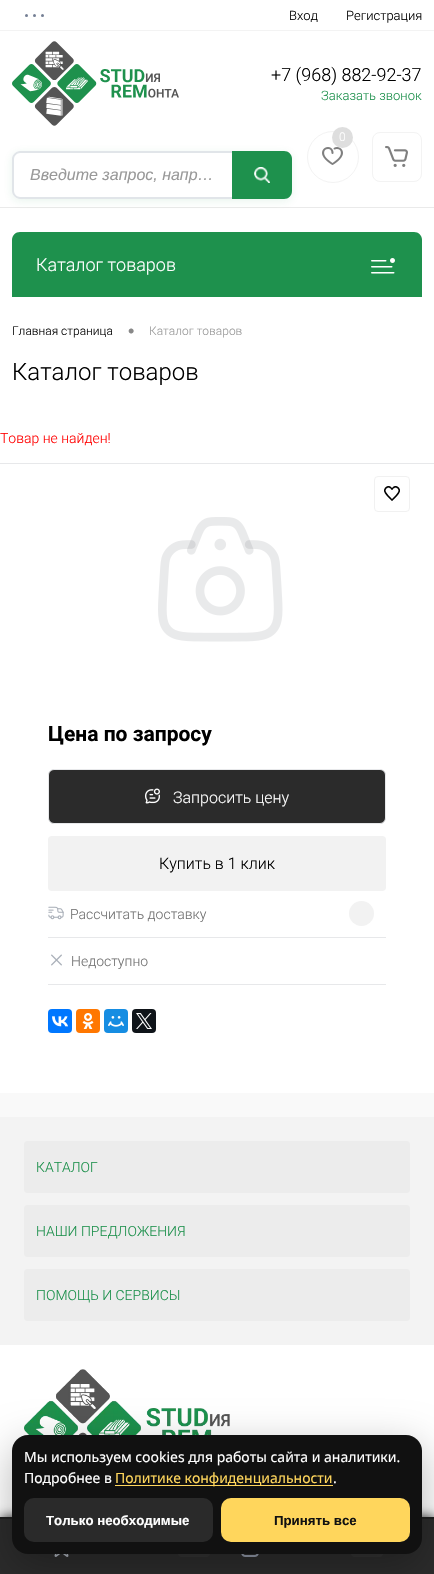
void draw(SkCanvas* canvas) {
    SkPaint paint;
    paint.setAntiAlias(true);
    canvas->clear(0xFFFFFFFF);
    paint.setColor(0xFF747F94);
    canvas->drawCircle(26.5f, 15.5f, 1.5f, paint);
    canvas->drawCircle(34.5f, 15.5f, 1.5f, paint);
    canvas->drawCircle(42.5f, 15.5f, 1.5f, paint);
    SkFont font1(fontMgr->matchFamilyStyle("Roboto", SkFontStyle(300, SkFontStyle::kNormal_Width, SkFontStyle::kUpright_Slant)), 13);
    font1.setSubpixel(true);
    paint.setColor(0xFF000000);
    canvas->drawString("Вход", 289, 20, font1, paint);
    canvas->drawString("Регистрация", 346, 20, font1, paint);
    paint.setColor(0xFFF3F3F3);
    canvas->drawRect(SkRect::MakeXYWH(0, 30, 434, 1), paint);
    paint.setColor(0xFFEAEAEA);
    canvas->drawRect(SkRect::MakeXYWH(0, 207, 434, 1), paint);
    canvas->drawImageRect(SkImages::DeferredFromEncodedData(SkData::MakeFromFileName("img1.png")), SkRect::MakeXYWH(12, 41, 167, 85), SkSamplingOptions());
    SkFont font2(fontMgr->matchFamilyStyle("Roboto", SkFontStyle(300, SkFontStyle::kNormal_Width, SkFontStyle::kUpright_Slant)), 18);
    font2.setSubpixel(true);
    paint.setColor(0xFF000000);
    canvas->drawString("+7 (968) 882-92-37", 271, 81, font2, paint);
    paint.setColor(0xFF1E914D);
    canvas->drawString("Заказать звонок", 321, 100, font1, paint);
    canvas->drawImageRect(SkImages::DeferredFromEncodedData(SkData::MakeFromFileName("img2.png")), SkRect::MakeXYWH(322, 147, 21, 18), SkSamplingOptions());
    paint.setColor(0x1A1E914D);
    paint.setMaskFilter(SkMaskFilter::MakeBlur(kNormal_SkBlurStyle, 5));
    canvas->drawRoundRect(SkRect::MakeXYWH(12, 153, 280, 48), 8, 8, paint);
    paint.setMaskFilter(nullptr);
    paint.setStyle(SkPaint::kStroke_Style);
    paint.setStrokeWidth(1);
    paint.setColor(0xFFF3F3F3);
    canvas->drawCircle(333, 157, 25.5f, paint);
    paint.setStyle(SkPaint::kFill_Style);
    paint.setColor(0xFFDEDEDE);
    canvas->drawCircle(342.5f, 137.5f, 10.5f, paint);
    SkFont font3(fontMgr->matchFamilyStyle("Roboto", SkFontStyle(300, SkFontStyle::kNormal_Width, SkFontStyle::kUpright_Slant)), 12);
    font3.setSubpixel(true);
    paint.setColor(0xFFFFFFFF);
    canvas->drawString("0", 339, 141, font3, paint);
    paint.setStyle(SkPaint::kStroke_Style);
    paint.setColor(0xFFF3F3F3);
    canvas->drawRoundRect(SkRect::MakeXYWH(372.5f, 132.5f, 49, 49), 7.5f, 7.5f, paint);
    canvas->drawImageRect(SkImages::DeferredFromEncodedData(SkData::MakeFromFileName("img3.png")), SkRect::MakeXYWH(385, 146, 23, 21), SkSamplingOptions());
    paint.setStyle(SkPaint::kFill_Style);
    paint.setColor(0xFFFFFFFF);
    canvas->drawPath(SkPathBuilder().moveTo(20, 151).lineTo(232, 151).lineTo(232, 199).lineTo(20, 199).cubicTo(15.5f, 199, 12, 195.5f, 12, 191).lineTo(12, 159).cubicTo(12, 154.5f, 15.5f, 151, 20, 151).close().detach(), paint);
    paint.setColor(0xFFE1E5E9);
    canvas->drawPath(SkPathBuilder(SkPathFillType::kEvenOdd).moveTo(20, 151).lineTo(232, 151).lineTo(232, 199).lineTo(20, 199).cubicTo(16, 199, 12, 195, 12, 191).lineTo(12, 159).cubicTo(12, 155, 16, 151, 20, 151).close().moveTo(20, 153).lineTo(232, 153).lineTo(232, 197).lineTo(20, 197).cubicTo(17, 197, 14, 194, 14, 191).lineTo(14, 159).cubicTo(14, 156, 17, 153, 20, 153).close().detach(), paint);
    SkFont font4(fontMgr->matchFamilyStyle("Liberation Sans", SkFontStyle::Italic()), 16);
    font4.setSubpixel(true);
    paint.setColor(0xFF999999);
    canvas->drawString("Введите запрос, напр…", 30, 180, font4, paint);
    paint.setColor(0xFF1E914D);
    canvas->drawPath(SkPathBuilder().moveTo(232, 151).lineTo(284, 151).cubicTo(288.5f, 151, 292, 154.5f, 292, 159).lineTo(292, 191).cubicTo(292, 195.5f, 288.5f, 199, 284, 199).lineTo(232, 199).close().detach(), paint);
    canvas->drawImageRect(SkImages::DeferredFromEncodedData(SkData::MakeFromFileName("img4.png")), SkRect::MakeXYWH(254, 167, 16, 16), SkSamplingOptions());
    canvas->drawPath(SkPathBuilder().moveTo(20, 232).lineTo(414, 232).cubicTo(418.5f, 232, 422, 235.5f, 422, 240).lineTo(422, 297).lineTo(12, 297).lineTo(12, 240).cubicTo(12, 235.5f, 15.5f, 232, 20, 232).close().detach(), paint);
    paint.setColor(0xFFFFFFFF);
    canvas->drawString("Каталог товаров", 36, 271, font2, paint);
    canvas->drawImageRect(SkImages::DeferredFromEncodedData(SkData::MakeFromFileName("img5.png")), SkRect::MakeXYWH(371, 258, 24, 16), SkSamplingOptions());
    paint.setColor(0xFF000000);
    canvas->drawString("Главная страница", 12, 335, font3, paint);
    SkFont font5(fontMgr->matchFamilyStyle("Liberation Sans", SkFontStyle::Normal()), 18);
    font5.setSubpixel(true);
    paint.setColor(0xFF888888);
    canvas->drawString("•", 128, 337, font5, paint);
    paint.setColor(0xFF999999);
    canvas->drawString("Каталог товаров", 149, 335, font3, paint);
    SkFont font6(fontMgr->matchFamilyStyle("Roboto", SkFontStyle(300, SkFontStyle::kNormal_Width, SkFontStyle::kUpright_Slant)), 24);
    font6.setSubpixel(true);
    paint.setColor(0xFF000000);
    canvas->drawString("Каталог товаров", 12, 380, font6, paint);
    SkFont font7(fontMgr->matchFamilyStyle("Roboto", SkFontStyle(300, SkFontStyle::kNormal_Width, SkFontStyle::kUpright_Slant)), 14);
    font7.setSubpixel(true);
    paint.setColor(0xFFFF0000);
    canvas->drawString("Товар не найден!", 0, 443, font7, paint);
    paint.setColor(0xFFE7E8EA);
    canvas->drawRect(SkRect::MakeXYWH(0, 463, 434, 1), paint);
    paint.setStyle(SkPaint::kStroke_Style);
    paint.setColor(0xFFF1F1F1);
    canvas->drawRoundRect(SkRect::MakeXYWH(374.5f, 476.5f, 35, 35), 3.5f, 3.5f, paint);
    canvas->drawImageRect(SkImages::DeferredFromEncodedData(SkData::MakeFromFileName("img6.png")), SkRect::MakeXYWH(384, 486, 16, 15), SkSamplingOptions());
    canvas->drawImageRect(SkImages::DeferredFromEncodedData(SkData::MakeFromFileName("img7.png")), SkRect::MakeXYWH(158, 517, 125, 125), SkSamplingOptions());
    SkFont font8(fontMgr->matchFamilyStyle("Roboto", SkFontStyle::Bold()), 21);
    font8.setSubpixel(true);
    paint.setStyle(SkPaint::kFill_Style);
    paint.setColor(0xFF000000);
    canvas->drawString("Цена по запросу", 48, 741, font8, paint);
    paint.setColor(0xFF2B2B2B);
    canvas->drawRoundRect(SkRect::MakeXYWH(48.5f, 769.5f, 337, 54), 5.5f, 5.5f, paint);
    paint.setStyle(SkPaint::kStroke_Style);
    paint.setColor(0xFFE7E8EA);
    canvas->drawRoundRect(SkRect::MakeXYWH(48.5f, 769.5f, 337, 54), 5.5f, 5.5f, paint);
    canvas->drawImageRect(SkImages::DeferredFromEncodedData(SkData::MakeFromFileName("img8.png")), SkRect::MakeXYWH(145, 788, 15, 16), SkSamplingOptions());
    SkFont font9(fontMgr->matchFamilyStyle("Roboto", SkFontStyle(300, SkFontStyle::kNormal_Width, SkFontStyle::kUpright_Slant)), 16);
    font9.setSubpixel(true);
    paint.setStyle(SkPaint::kFill_Style);
    paint.setColor(0xFFFFFFFF);
    canvas->drawString("Запросить цену", 173, 803, font9, paint);
    paint.setColor(0xFFF2F2F2);
    canvas->drawRoundRect(SkRect::MakeXYWH(48, 836, 338, 55), 4, 4, paint);
    paint.setColor(0xFF000000);
    canvas->drawString("Купить в 1 клик", 159, 869, font9, paint);
    canvas->drawImageRect(SkImages::DeferredFromEncodedData(SkData::MakeFromFileName("img9.png")), SkRect::MakeXYWH(48, 906, 16, 14), SkSamplingOptions());
    paint.setColor(0xFF717171);
    canvas->drawString("Рассчитать доставку", 70, 919, font7, paint);
    paint.setColor(0xFFF2F2F2);
    canvas->drawCircle(361.5f, 913.5f, 12.5f, paint);
    paint.setColor(0xFFE7E8EA);
    canvas->drawRect(SkRect::MakeXYWH(48, 937, 338, 1), paint);
    canvas->drawImageRect(SkImages::DeferredFromEncodedData(SkData::MakeFromFileName("img10.png")), SkRect::MakeXYWH(51, 954, 11, 12), SkSamplingOptions());
    paint.setColor(0xFF717171);
    canvas->drawString("Недоступно", 71, 966, font7, paint);
    paint.setColor(0xFFE7E8EA);
    canvas->drawRect(SkRect::MakeXYWH(48, 984, 338, 1), paint);
    paint.setColor(0xFF0077FF);
    canvas->drawRoundRect(SkRect::MakeXYWH(48, 1009, 24, 24), 4, 4, paint);
    canvas->drawImageRect(SkImages::DeferredFromEncodedData(SkData::MakeFromFileName("img11.png")), SkRect::MakeXYWH(52, 1016, 16, 11), SkSamplingOptions());
    paint.setColor(0xFFFF7700);
    canvas->drawRoundRect(SkRect::MakeXYWH(76, 1009, 24, 24), 4, 4, paint);
    canvas->drawImageRect(SkImages::DeferredFromEncodedData(SkData::MakeFromFileName("img12.png")), SkRect::MakeXYWH(82, 1013, 12, 16), SkSamplingOptions());
    paint.setColor(0xFF168DE2);
    canvas->drawRoundRect(SkRect::MakeXYWH(104, 1009, 24, 24), 4, 4, paint);
    canvas->drawImageRect(SkImages::DeferredFromEncodedData(SkData::MakeFromFileName("img13.png")), SkRect::MakeXYWH(108, 1016, 16, 11), SkSamplingOptions());
    paint.setColor(0xFF0F1419);
    canvas->drawRoundRect(SkRect::MakeXYWH(132, 1009, 24, 24), 4, 4, paint);
    canvas->drawImageRect(SkImages::DeferredFromEncodedData(SkData::MakeFromFileName("img14.png")), SkRect::MakeXYWH(136, 1013, 16, 16), SkSamplingOptions());
    paint.setColor(0xFFF9F9F9);
    canvas->drawRect(SkRect::MakeXYWH(0, 1093, 434, 24), paint);
    paint.setColor(0xFFF3F3F3);
    canvas->drawRect(SkRect::MakeXYWH(0, 1117, 434, 228), paint);
    paint.setColor(0xFFECECEC);
    canvas->drawRoundRect(SkRect::MakeXYWH(24, 1141, 386, 52), 4, 4, paint);
    paint.setColor(0xFF1E914D);
    canvas->drawString("КАТАЛОГ", 36, 1172, font7, paint);
    paint.setColor(0xFFECECEC);
    canvas->drawRoundRect(SkRect::MakeXYWH(24, 1205, 386, 52), 4, 4, paint);
    paint.setColor(0xFF1E914D);
    canvas->drawString("НАШИ ПРЕДЛОЖЕНИЯ", 36, 1236, font7, paint);
    paint.setColor(0xFFECECEC);
    canvas->drawRoundRect(SkRect::MakeXYWH(24, 1269, 386, 52), 4, 4, paint);
    paint.setColor(0xFF1E914D);
    canvas->drawString("ПОМОЩЬ И СЕРВИСЫ", 36, 1300, font7, paint);
    canvas->drawImageRect(SkImages::DeferredFromEncodedData(SkData::MakeFromFileName("img15.png")), SkRect::MakeXYWH(24, 1369, 206, 66), SkSamplingOptions());
    paint.setColor(0xFF000000);
    paint.setMaskFilter(SkMaskFilter::MakeBlur(kNormal_SkBlurStyle, 6));
    canvas->drawRect(SkRect::MakeXYWH(1, 1518, 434, 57), paint);
    paint.setMaskFilter(nullptr);
    paint.setColor(0xFF2B2B2B);
    canvas->drawRect(SkRect::MakeXYWH(0, 1519, 434, 55), paint);
    paint.setColor(0xFF202020);
    canvas->drawRect(SkRect::MakeXYWH(0, 1517, 434, 2), paint);
    canvas->drawImageRect(SkImages::DeferredFromEncodedData(SkData::MakeFromFileName("img16.png")), SkRect::MakeXYWH(54, 1554, 15, 3), SkSamplingOptions());
    paint.setColor(0xFF313131);
    canvas->drawRoundRect(SkRect::MakeXYWH(178, 1537, 32, 20), 4, 4, paint);
    canvas->drawImageRect(SkImages::DeferredFromEncodedData(SkData::MakeFromFileName("img17.png")), SkRect::MakeXYWH(241, 1554, 18, 3), SkSamplingOptions());
    canvas->drawRoundRect(SkRect::MakeXYWH(351, 1537, 32, 20), 4, 4, paint);
    paint.setColor(0x47000000);
    paint.setMaskFilter(SkMaskFilter::MakeBlur(kNormal_SkBlurStyle, 20));
    canvas->drawRoundRect(SkRect::MakeXYWH(12, 1447, 410, 119), 16, 16, paint);
    paint.setMaskFilter(nullptr);
    paint.setColor(0xFF111111);
    canvas->drawRoundRect(SkRect::MakeXYWH(12, 1435, 410, 119), 16, 16, paint);
    SkFont font10(fontMgr->matchFamilyStyle("Noto Sans", SkFontStyle::Normal()), 14);
    font10.setSubpixel(true);
    paint.setColor(0xFFFFFFFF);
    canvas->drawString("Мы используем cookies для работы сайта и аналитики.", 24, 1462, font10, paint);
    canvas->drawString("Подробнее в", 24, 1483, font10, paint);
    paint.setColor(0xFFFFD65C);
    canvas->drawRect(SkRect::MakeXYWH(115, 1485, 218, 1), paint);
    canvas->drawString("Политике конфиденциальности", 115, 1483, font10, paint);
    paint.setColor(0xFFFFFFFF);
    canvas->drawString(".", 333, 1483, font10, paint);
    paint.setColor(0xFF2A2A2A);
    canvas->drawRoundRect(SkRect::MakeXYWH(24, 1498, 189, 44), 10, 10, paint);
    SkFont font11(fontMgr->matchFamilyStyle("Liberation Sans", SkFontStyle::Bold()), 13.25f);
    font11.setSubpixel(true);
    paint.setColor(0xFFFFFFFF);
    canvas->drawString("Только необходимые", 46, 1525, font11, paint);
    paint.setColor(0xFFFFD65C);
    canvas->drawRoundRect(SkRect::MakeXYWH(221, 1498, 189, 44), 10, 10, paint);
    paint.setColor(0xFF111111);
    canvas->drawString("Принять все", 274, 1525, font11, paint);
}
